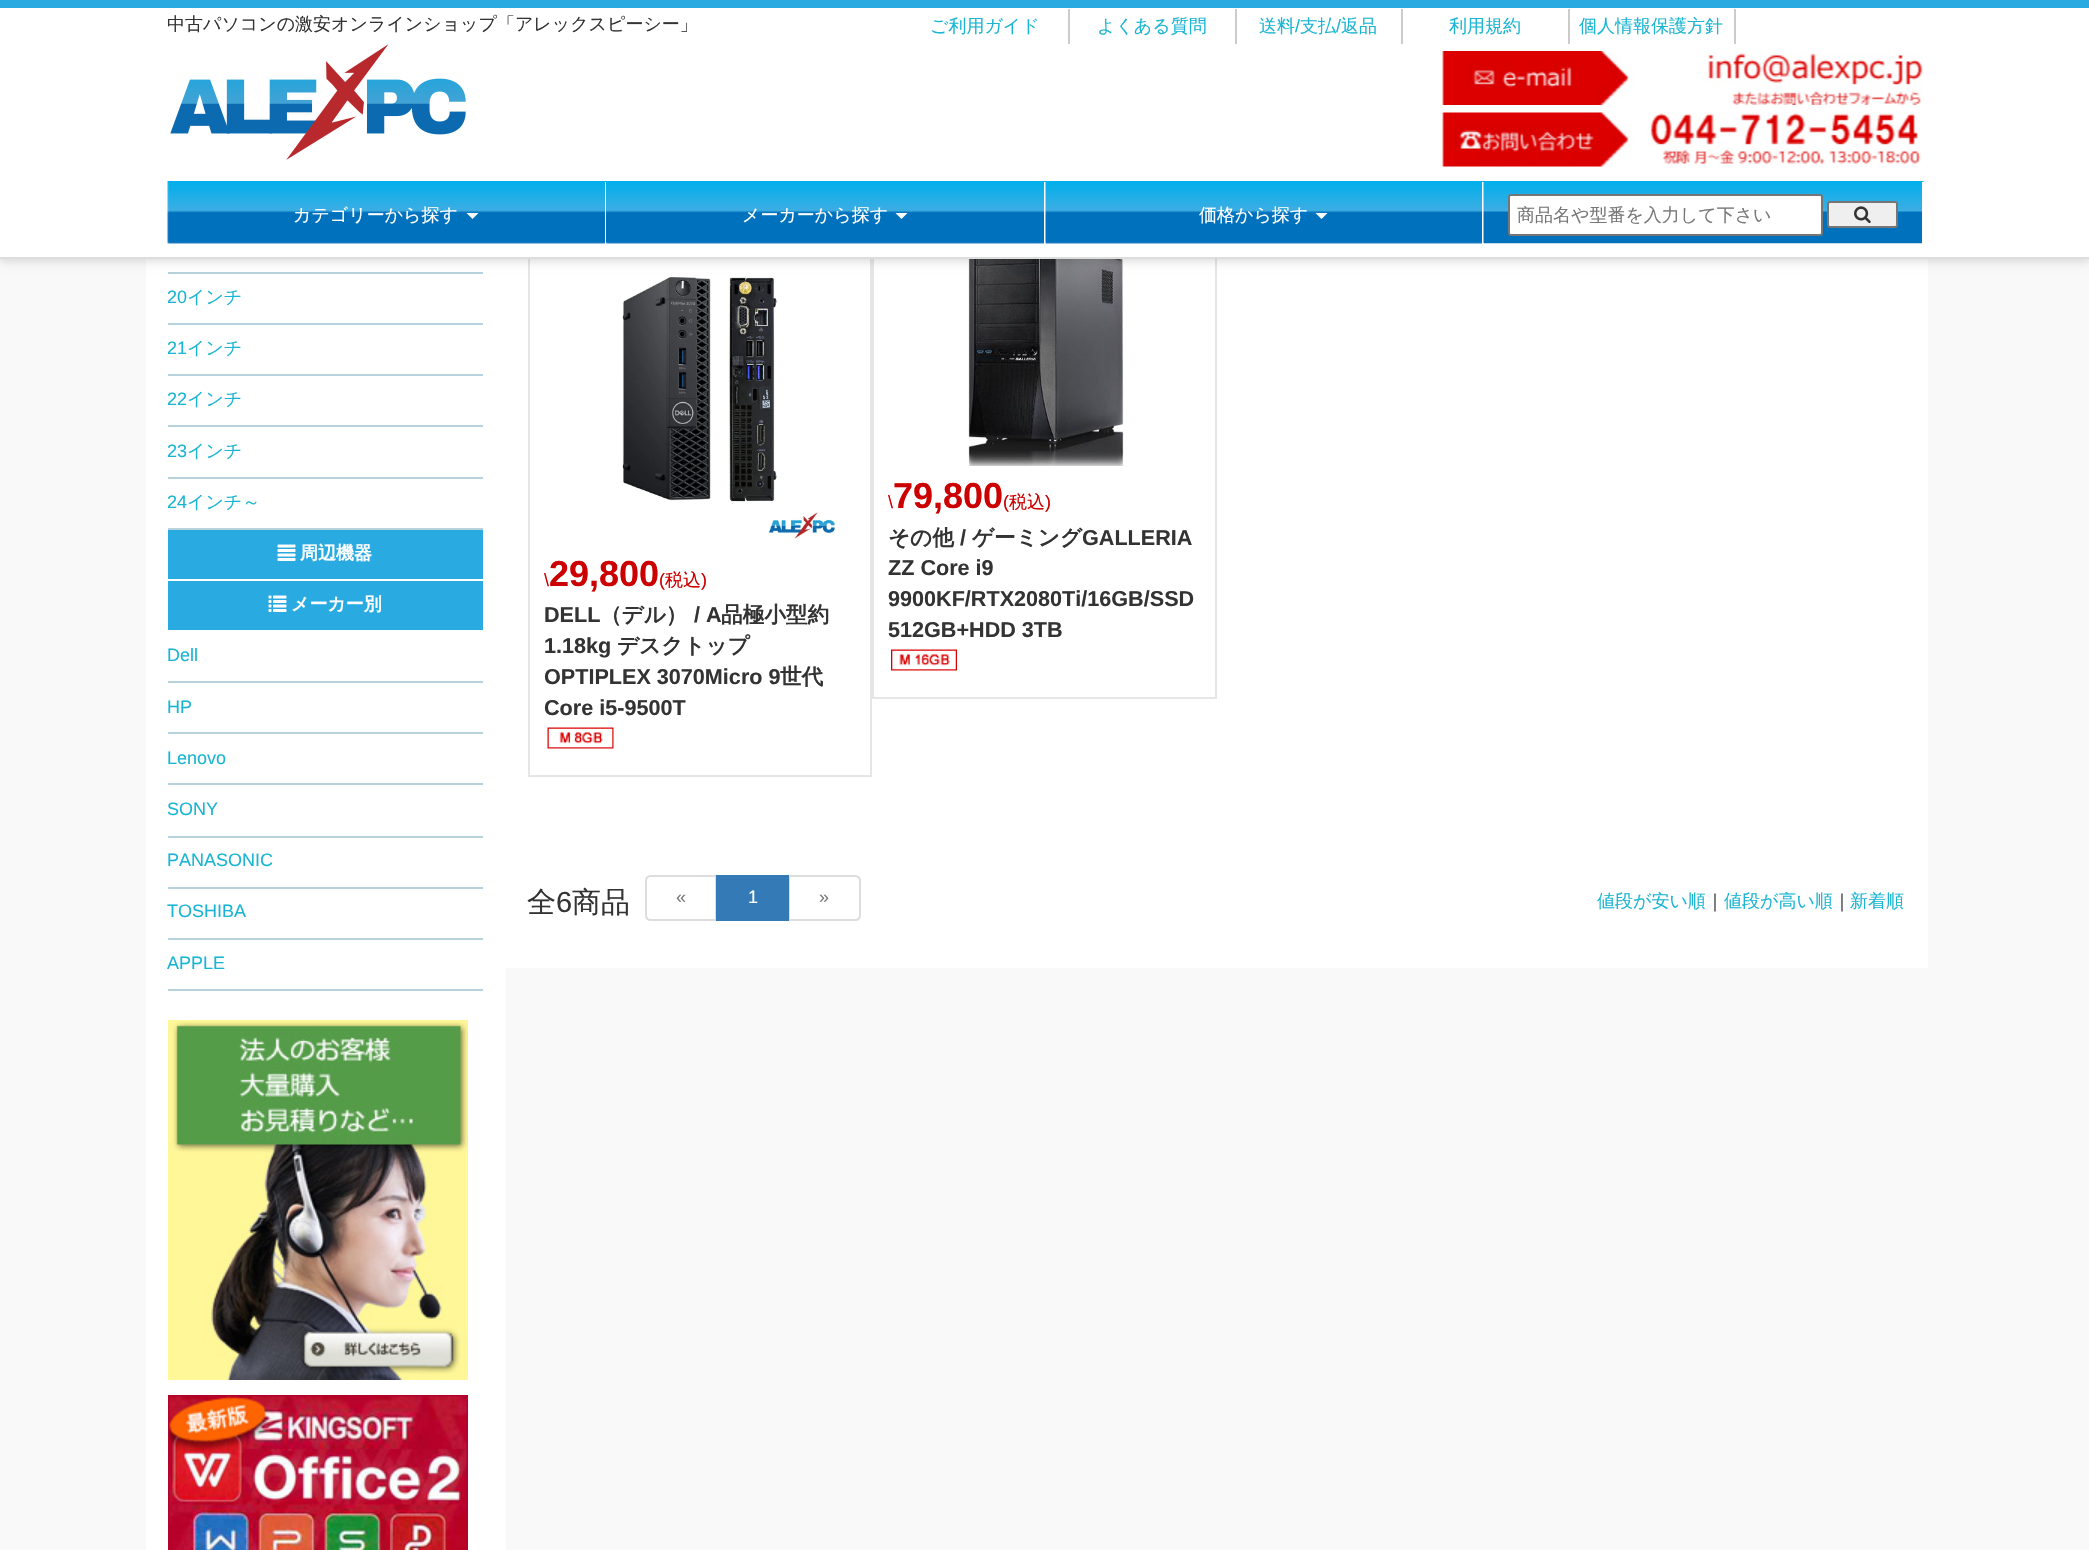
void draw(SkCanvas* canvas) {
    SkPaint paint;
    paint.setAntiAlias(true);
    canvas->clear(0xFFF9F9F9);
    paint.setColor(0xFFFFFFFF);
    canvas->drawRect(SkRect::MakeXYWH(146, 259, 360, 1291), paint);
    paint.setColor(0xFFB6D3DD);
    canvas->drawRect(SkRect::MakeXYWH(168, 272, 315, 2), paint);
    paint.setColor(0xFFFFFFFF);
    canvas->drawRect(SkRect::MakeXYWH(506, 259, 1422, 709), paint);
    paint.setStyle(SkPaint::kStroke_Style);
    paint.setStrokeWidth(2);
    paint.setColor(0xFFE6E6E6);
    canvas->drawRect(SkRect::MakeXYWH(529, 220, 342, 556), paint);
    canvas->drawRect(SkRect::MakeXYWH(873, 220, 343, 478), paint);
    canvas->drawImageRect(SkImages::DeferredFromEncodedData(SkData::MakeFromFileName("img16.png")), SkRect::MakeXYWH(968, 259, 157, 207), SkSamplingOptions());
    paint.setStyle(SkPaint::kFill_Style);
    paint.setColor(0x26000000);
    paint.setMaskFilter(SkMaskFilter::MakeBlur(kNormal_SkBlurStyle, 4.5f));
    canvas->drawRect(SkRect::MakeXYWH(0, 3, 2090, 258), paint);
    paint.setMaskFilter(nullptr);
    paint.setColor(0xFFFFFFFF);
    canvas->drawRect(SkRect::MakeXYWH(0, 8, 2089, 249), paint);
    paint.setColor(0xFF29ABE2);
    canvas->drawRect(SkRect::MakeXYWH(0, 0, 2089, 8), paint);
    paint.setColor(0xFFDDDDDD);
    canvas->drawRect(SkRect::MakeXYWH(0, 257, 2089, 2), paint);
    SkFont font1(fontMgr->matchFamilyStyle("WenQuanYi Zen Hei", SkFontStyle(500, SkFontStyle::kNormal_Width, SkFontStyle::kUpright_Slant)), 18);
    font1.setSubpixel(true);
    paint.setColor(0xFF333333);
    canvas->drawString("中古パソコンの激安オンラインショップ「アレックスピーシー」", 167, 30, font1, paint);
    paint.setColor(0xFFCCCCCC);
    canvas->drawRect(SkRect::MakeXYWH(1068, 9, 2, 35), paint);
    paint.setColor(0xFF1AB5D3);
    canvas->drawString("ご利用ガイド", 930, 32, font1, paint);
    paint.setColor(0xFFCCCCCC);
    canvas->drawRect(SkRect::MakeXYWH(1235, 9, 2, 35), paint);
    paint.setColor(0xFF1AB5D3);
    canvas->drawString("よくある質問", 1097, 32, font1, paint);
    paint.setColor(0xFFCCCCCC);
    canvas->drawRect(SkRect::MakeXYWH(1401, 9, 2, 35), paint);
    paint.setColor(0xFF1AB5D3);
    canvas->drawString("送料", 1259, 32, font1, paint);
    SkFont font2(fontMgr->matchFamilyStyle("Liberation Sans", SkFontStyle::Normal()), 18);
    font2.setSubpixel(true);
    canvas->drawString("/", 1295, 32, font2, paint);
    canvas->drawString("支払", 1300, 32, font1, paint);
    canvas->drawString("/", 1336, 32, font2, paint);
    canvas->drawString("返品", 1341, 32, font1, paint);
    paint.setColor(0xFFCCCCCC);
    canvas->drawRect(SkRect::MakeXYWH(1568, 9, 2, 35), paint);
    paint.setColor(0xFF1AB5D3);
    canvas->drawString("利用規約", 1449, 32, font1, paint);
    paint.setColor(0xFFCCCCCC);
    canvas->drawRect(SkRect::MakeXYWH(1734, 9, 2, 35), paint);
    paint.setColor(0xFF1AB5D3);
    canvas->drawString("個人情報保護方針", 1579, 32, font1, paint);
    canvas->drawImageRect(SkImages::DeferredFromEncodedData(SkData::MakeFromFileName("img1.png")), SkRect::MakeXYWH(170, 44, 296, 116), SkSamplingOptions());
    canvas->drawImageRect(SkImages::DeferredFromEncodedData(SkData::MakeFromFileName("img2.png")), SkRect::MakeXYWH(1442, 51, 481, 54), SkSamplingOptions());
    canvas->drawImageRect(SkImages::DeferredFromEncodedData(SkData::MakeFromFileName("img3.png")), SkRect::MakeXYWH(1442, 112, 479, 55), SkSamplingOptions());
    canvas->drawImageRect(SkImages::DeferredFromEncodedData(SkData::MakeFromFileName("img4.png")), SkRect::MakeXYWH(167, 181, 1757, 63), SkSamplingOptions());
    canvas->drawImageRect(SkImages::DeferredFromEncodedData(SkData::MakeFromFileName("img5.png")), SkRect::MakeXYWH(167, 181, 440, 63), SkSamplingOptions());
    paint.setColor(0xFFFFFFFF);
    canvas->drawRect(SkRect::MakeXYWH(605, 182, 2, 62), paint);
    canvas->drawString("カテゴリーから探す", 293, 221, font1, paint);
    canvas->drawPath(SkPathBuilder().moveTo(466.5f, 213).lineTo(478.5f, 213).lineTo(472.5f, 219).close().detach(), paint);
    canvas->drawImageRect(SkImages::DeferredFromEncodedData(SkData::MakeFromFileName("img6.png")), SkRect::MakeXYWH(606, 182, 438, 62), SkSamplingOptions());
    canvas->drawRect(SkRect::MakeXYWH(1044, 182, 2, 62), paint);
    canvas->drawString("メーカーから探す", 742, 221, font1, paint);
    canvas->drawPath(SkPathBuilder().moveTo(895.5f, 213).lineTo(907.5f, 213).lineTo(901.5f, 219).close().detach(), paint);
    canvas->drawImageRect(SkImages::DeferredFromEncodedData(SkData::MakeFromFileName("img7.png")), SkRect::MakeXYWH(1045, 182, 437, 62), SkSamplingOptions());
    canvas->drawRect(SkRect::MakeXYWH(1482, 182, 2, 62), paint);
    canvas->drawString("価格から探す", 1199, 221, font1, paint);
    canvas->drawPath(SkPathBuilder().moveTo(1315.5f, 213).lineTo(1327.5f, 213).lineTo(1321.5f, 219).close().detach(), paint);
    canvas->drawImageRect(SkImages::DeferredFromEncodedData(SkData::MakeFromFileName("img8.png")), SkRect::MakeXYWH(1483, 181, 441, 62), SkSamplingOptions());
    canvas->drawRect(SkRect::MakeXYWH(1922, 182, 2, 62), paint);
    canvas->drawRoundRect(SkRect::MakeXYWH(1509, 195, 313, 40), 2, 2, paint);
    paint.setStyle(SkPaint::kStroke_Style);
    paint.setColor(0xFF767676);
    canvas->drawRoundRect(SkRect::MakeXYWH(1509, 195, 313, 40), 2, 2, paint);
    paint.setStyle(SkPaint::kFill_Style);
    paint.setColor(0xFF777777);
    canvas->drawString("商品名や型番を入力して下さい", 1517, 221, font1, paint);
    paint.setColor(0xFFEFEFEF);
    canvas->drawRoundRect(SkRect::MakeXYWH(1828, 202, 69, 25), 2, 2, paint);
    paint.setStyle(SkPaint::kStroke_Style);
    paint.setColor(0xFF767676);
    canvas->drawRoundRect(SkRect::MakeXYWH(1828, 202, 69, 25), 2, 2, paint);
    canvas->drawImageRect(SkImages::DeferredFromEncodedData(SkData::MakeFromFileName("img9.png")), SkRect::MakeXYWH(1854, 206, 17, 18), SkSamplingOptions());
    paint.setStyle(SkPaint::kFill_Style);
    paint.setColor(0xFFB6D3DD);
    canvas->drawRect(SkRect::MakeXYWH(168, 323, 315, 2), paint);
    paint.setColor(0xFF1AB5D3);
    canvas->drawString("20", 167, 303, font2, paint);
    canvas->drawString("インチ", 187, 303, font1, paint);
    paint.setColor(0xFFB6D3DD);
    canvas->drawRect(SkRect::MakeXYWH(168, 374, 315, 2), paint);
    paint.setColor(0xFF1AB5D3);
    canvas->drawString("21", 167, 354, font2, paint);
    canvas->drawString("インチ", 187, 354, font1, paint);
    paint.setColor(0xFFB6D3DD);
    canvas->drawRect(SkRect::MakeXYWH(168, 425, 315, 2), paint);
    paint.setColor(0xFF1AB5D3);
    canvas->drawString("22", 167, 405, font2, paint);
    canvas->drawString("インチ", 187, 405, font1, paint);
    paint.setColor(0xFFB6D3DD);
    canvas->drawRect(SkRect::MakeXYWH(168, 477, 315, 2), paint);
    paint.setColor(0xFF1AB5D3);
    canvas->drawString("23", 167, 457, font2, paint);
    canvas->drawString("インチ", 187, 457, font1, paint);
    paint.setColor(0xFFB6D3DD);
    canvas->drawRect(SkRect::MakeXYWH(168, 528, 315, 2), paint);
    paint.setColor(0xFF1AB5D3);
    canvas->drawString("24", 167, 508, font2, paint);
    canvas->drawString("インチ～", 187, 508, font1, paint);
    paint.setColor(0xFF29ABE2);
    canvas->drawRect(SkRect::MakeXYWH(168, 530, 315, 49), paint);
    canvas->drawImageRect(SkImages::DeferredFromEncodedData(SkData::MakeFromFileName("img10.png")), SkRect::MakeXYWH(277, 544, 19, 17), SkSamplingOptions());
    SkFont font3(fontMgr->matchFamilyStyle("WenQuanYi Zen Hei", SkFontStyle::Bold()), 18);
    font3.setSubpixel(true);
    paint.setColor(0xFFFFFFFF);
    canvas->drawString("周辺機器", 300, 559, font3, paint);
    paint.setColor(0xFF29ABE2);
    canvas->drawRect(SkRect::MakeXYWH(168, 581, 315, 49), paint);
    canvas->drawImageRect(SkImages::DeferredFromEncodedData(SkData::MakeFromFileName("img11.png")), SkRect::MakeXYWH(268, 595, 19, 17), SkSamplingOptions());
    paint.setColor(0xFFFFFFFF);
    canvas->drawString("メーカー別", 291, 610, font3, paint);
    paint.setColor(0xFFB6D3DD);
    canvas->drawRect(SkRect::MakeXYWH(168, 681, 315, 2), paint);
    paint.setColor(0xFF1AB5D3);
    canvas->drawString("Dell", 167, 661, font2, paint);
    paint.setColor(0xFFB6D3DD);
    canvas->drawRect(SkRect::MakeXYWH(168, 732, 315, 2), paint);
    paint.setColor(0xFF1AB5D3);
    canvas->drawString("HP", 167, 713, font2, paint);
    paint.setColor(0xFFB6D3DD);
    canvas->drawRect(SkRect::MakeXYWH(168, 783, 315, 2), paint);
    paint.setColor(0xFF1AB5D3);
    canvas->drawString("Lenovo", 167, 764, font2, paint);
    paint.setColor(0xFFB6D3DD);
    canvas->drawRect(SkRect::MakeXYWH(168, 836, 315, 2), paint);
    paint.setColor(0xFF1AB5D3);
    canvas->drawString("SONY", 167, 815, font2, paint);
    paint.setColor(0xFFB6D3DD);
    canvas->drawRect(SkRect::MakeXYWH(168, 887, 315, 2), paint);
    paint.setColor(0xFF1AB5D3);
    canvas->drawString("PANASONIC", 167, 866, font2, paint);
    paint.setColor(0xFFB6D3DD);
    canvas->drawRect(SkRect::MakeXYWH(168, 938, 315, 2), paint);
    paint.setColor(0xFF1AB5D3);
    canvas->drawString("TOSHIBA", 167, 917, font2, paint);
    paint.setColor(0xFFB6D3DD);
    canvas->drawRect(SkRect::MakeXYWH(168, 989, 315, 2), paint);
    paint.setColor(0xFF1AB5D3);
    canvas->drawString("APPLE", 167, 969, font2, paint);
    canvas->drawImageRect(SkImages::DeferredFromEncodedData(SkData::MakeFromFileName("img12.png")), SkRect::MakeXYWH(168, 1020, 300, 360), SkSamplingOptions());
    canvas->drawImageRect(SkImages::DeferredFromEncodedData(SkData::MakeFromFileName("img13.png")), SkRect::MakeXYWH(168, 1395, 300, 155), SkSamplingOptions());
    canvas->drawImageRect(SkImages::DeferredFromEncodedData(SkData::MakeFromFileName("img14.png")), SkRect::MakeXYWH(622, 277, 213, 262), SkSamplingOptions());
    paint.setColor(0xFFCC0000);
    canvas->drawString("\\", 544, 586, font2, paint);
    SkFont font4(fontMgr->matchFamilyStyle("Liberation Sans", SkFontStyle::Bold()), 36);
    font4.setSubpixel(true);
    canvas->drawString("29,800", 549, 586, font4, paint);
    canvas->drawString("(", 659, 586, font2, paint);
    canvas->drawString("税込", 665, 586, font1, paint);
    canvas->drawString(")", 701, 586, font2, paint);
    SkFont font5(fontMgr->matchFamilyStyle("Liberation Sans", SkFontStyle::Bold()), 21.6f);
    font5.setSubpixel(true);
    paint.setColor(0xFF333333);
    canvas->drawString("DELL", 544, 622, font5, paint);
    SkFont font6(fontMgr->matchFamilyStyle("WenQuanYi Zen Hei", SkFontStyle::Bold()), 21.6f);
    font6.setSubpixel(true);
    canvas->drawString("（デル）", 600, 622, font6, paint);
    canvas->drawString("/ A", 694, 622, font5, paint);
    canvas->drawString("品極小型約", 721, 622, font6, paint);
    canvas->drawString("1.18kg", 544, 653, font5, paint);
    canvas->drawString("デスクトップ", 617, 653, font6, paint);
    canvas->drawString("OPTIPLEX 3070Micro 9", 544, 684, font5, paint);
    canvas->drawString("世代", 780, 684, font6, paint);
    canvas->drawString("Core i5-9500T", 544, 715, font5, paint);
    canvas->drawImageRect(SkImages::DeferredFromEncodedData(SkData::MakeFromFileName("img15.png")), SkRect::MakeXYWH(547, 727, 67, 22), SkSamplingOptions());
    paint.setColor(0xFFCC0000);
    canvas->drawString("\\", 888, 508, font2, paint);
    canvas->drawString("79,800", 893, 508, font4, paint);
    canvas->drawString("(", 1003, 508, font2, paint);
    canvas->drawString("税込", 1009, 508, font1, paint);
    canvas->drawString(")", 1045, 508, font2, paint);
    paint.setColor(0xFF333333);
    canvas->drawString("その他", 888, 545, font6, paint);
    canvas->drawString("/", 960, 545, font5, paint);
    canvas->drawString("ゲーミング", 972, 545, font6, paint);
    canvas->drawString("GALLERIA", 1082, 545, font5, paint);
    canvas->drawString("ZZ Core i9", 888, 575, font5, paint);
    canvas->drawString("9900KF/RTX2080Ti/16GB/SSD", 888, 606, font5, paint);
    canvas->drawString("512GB+HDD 3TB", 888, 637, font5, paint);
    canvas->drawImageRect(SkImages::DeferredFromEncodedData(SkData::MakeFromFileName("img17.png")), SkRect::MakeXYWH(891, 649, 66, 22), SkSamplingOptions());
    SkFont font7(fontMgr->matchFamilyStyle("WenQuanYi Zen Hei", SkFontStyle(500, SkFontStyle::kNormal_Width, SkFontStyle::kUpright_Slant)), 29);
    font7.setSubpixel(true);
    canvas->drawString("全", 527, 912, font7, paint);
    SkFont font8(fontMgr->matchFamilyStyle("Liberation Sans", SkFontStyle::Normal()), 29);
    font8.setSubpixel(true);
    canvas->drawString("6", 556, 912, font8, paint);
    canvas->drawString("商品", 572, 912, font7, paint);
    paint.setStyle(SkPaint::kStroke_Style);
    paint.setColor(0xFFDDDDDD);
    canvas->drawPath(SkPathBuilder().moveTo(651, 876).lineTo(716, 876).lineTo(716, 920).lineTo(651, 920).cubicTo(648, 920, 646, 918, 646, 915).lineTo(646, 881).cubicTo(646, 878, 648, 876, 651, 876).close().detach(), paint);
    paint.setStyle(SkPaint::kFill_Style);
    paint.setColor(0xFF777777);
    canvas->drawString("«", 676, 903, font2, paint);
    paint.setStyle(SkPaint::kStroke_Style);
    paint.setColor(0xFFDDDDDD);
    canvas->drawPath(SkPathBuilder().moveTo(789, 876).lineTo(855, 876).cubicTo(858, 876, 860, 878, 860, 881).lineTo(860, 915).cubicTo(860, 918, 858, 920, 855, 920).lineTo(789, 920).close().detach(), paint);
    paint.setStyle(SkPaint::kFill_Style);
    paint.setColor(0xFF337AB7);
    canvas->drawRect(SkRect::MakeXYWH(716, 875, 73, 46), paint);
    paint.setColor(0xFFFFFFFF);
    canvas->drawString("1", 748, 903, font2, paint);
    paint.setColor(0xFF777777);
    canvas->drawString("»", 819, 903, font2, paint);
    paint.setColor(0xFF1AB5D3);
    canvas->drawString("値段が安い順", 1597, 907, font1, paint);
    paint.setColor(0xFF333333);
    canvas->drawString("｜", 1706, 907, font1, paint);
    paint.setColor(0xFF1AB5D3);
    canvas->drawString("値段が高い順", 1724, 907, font1, paint);
    paint.setColor(0xFF333333);
    canvas->drawString("｜", 1833, 907, font1, paint);
    paint.setColor(0xFF1AB5D3);
    canvas->drawString("新着順", 1850, 907, font1, paint);
}
